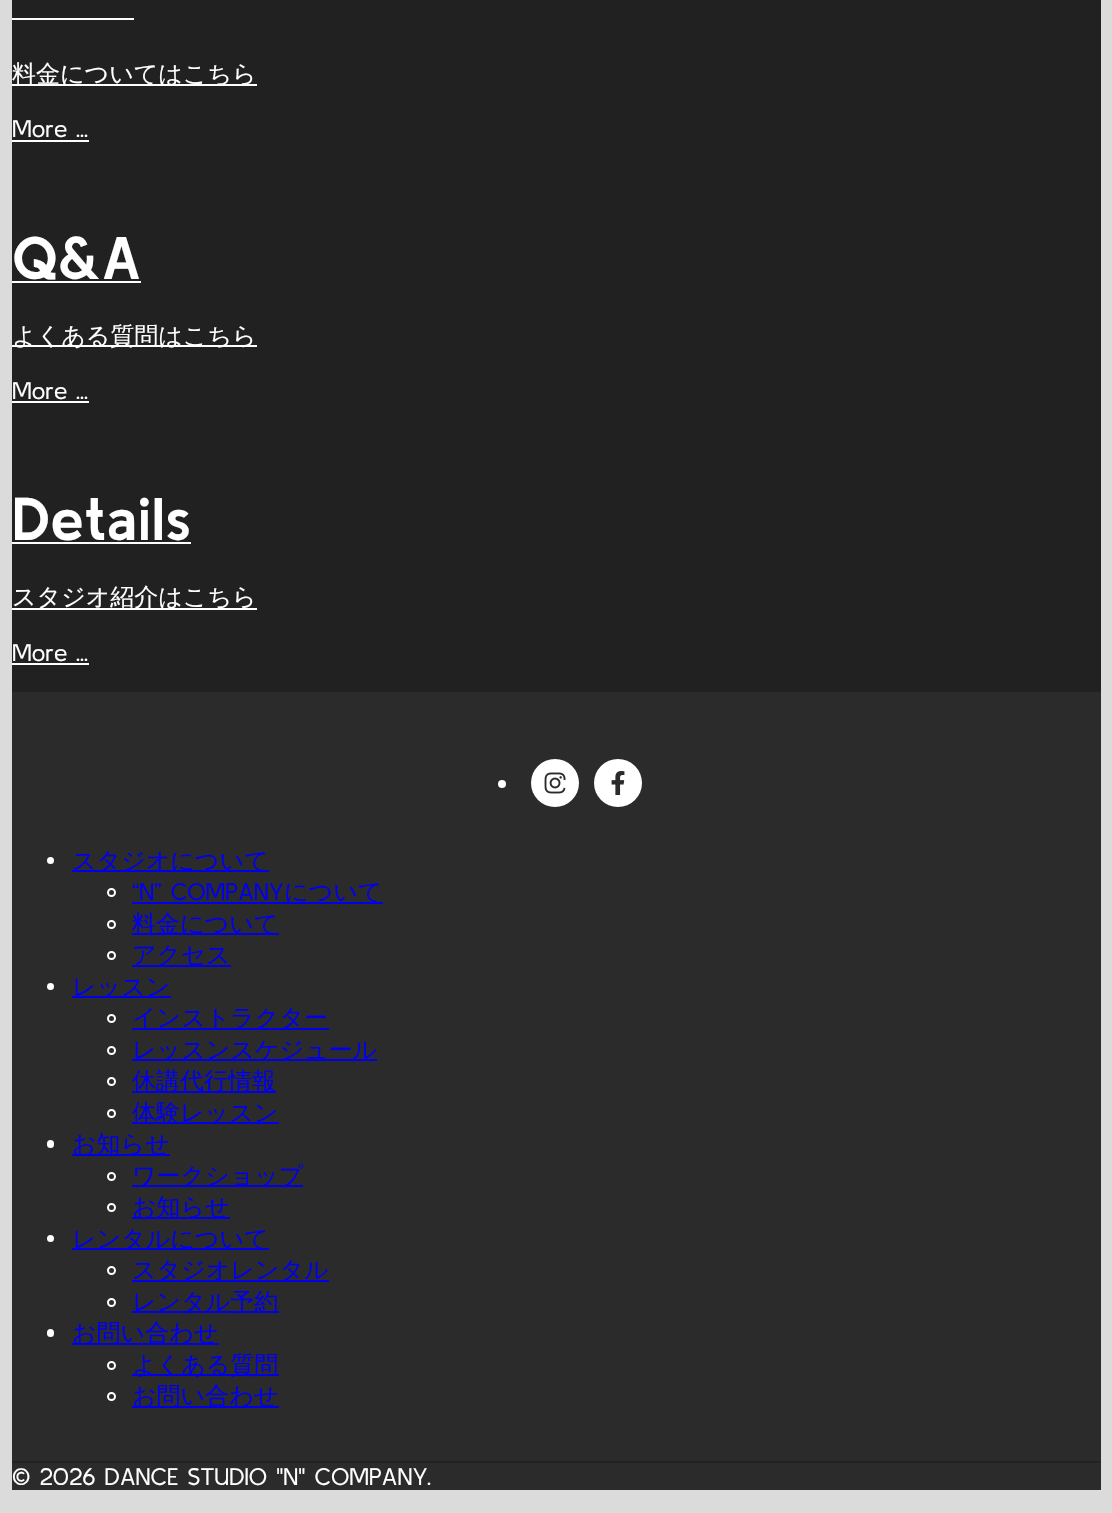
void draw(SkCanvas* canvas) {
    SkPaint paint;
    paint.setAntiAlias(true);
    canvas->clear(0xFFDBDBDB);
    paint.setColor(0xFF212121);
    canvas->drawRect(SkRect::MakeXYWH(12, 0, 1089, 692), paint);
    paint.setColor(0xFFFFFFFF);
    canvas->drawRect(SkRect::MakeXYWH(12, 18, 122, 2), paint);
    canvas->drawRect(SkRect::MakeXYWH(12, 84, 245, 2), paint);
    SkFont font1(fontMgr->matchFamilyStyle("WenQuanYi Zen Hei", SkFontStyle(500, SkFontStyle::kNormal_Width, SkFontStyle::kUpright_Slant)), 24);
    font1.setSubpixel(true);
    canvas->drawString("料金についてはこちら", 12, 82, font1, paint);
    SkFont font2(fontMgr->matchFamilyStyle("Kulim Park", SkFontStyle::Normal()), 24);
    font2.setSubpixel(true);
    canvas->drawString("More ...", 12, 137, font2, paint);
    canvas->drawRect(SkRect::MakeXYWH(12, 140, 77, 2), paint);
    SkFont font3(fontMgr->matchFamilyStyle("Kulim Park", SkFontStyle::Bold()), 60);
    font3.setSubpixel(true);
    canvas->drawString("Q&A", 12, 279, font3, paint);
    canvas->drawRect(SkRect::MakeXYWH(12, 281, 129, 2), paint);
    canvas->drawRect(SkRect::MakeXYWH(12, 345, 245, 2), paint);
    canvas->drawString("よくある質問はこちら", 12, 344, font1, paint);
    canvas->drawString("More ...", 12, 399, font2, paint);
    canvas->drawRect(SkRect::MakeXYWH(12, 401, 77, 2), paint);
    canvas->drawString("Details", 12, 540, font3, paint);
    canvas->drawRect(SkRect::MakeXYWH(12, 542, 179, 2), paint);
    canvas->drawRect(SkRect::MakeXYWH(12, 608, 245, 2), paint);
    canvas->drawString("スタジオ紹介はこちら", 12, 605, font1, paint);
    canvas->drawString("More ...", 12, 661, font2, paint);
    canvas->drawRect(SkRect::MakeXYWH(12, 663, 77, 2), paint);
    paint.setColor(0xFF2B2B2B);
    canvas->drawRect(SkRect::MakeXYWH(12, 692, 1089, 798), paint);
    paint.setColor(0xFFFFFFFF);
    canvas->drawCircle(502, 784, 4, paint);
    canvas->drawCircle(555, 783, 24, paint);
    canvas->drawImageRect(SkImages::DeferredFromEncodedData(SkData::MakeFromFileName("img1.png")), SkRect::MakeXYWH(544, 772, 22, 22), SkSamplingOptions());
    canvas->drawCircle(565, 784, 4, paint);
    canvas->drawCircle(618, 783, 24, paint);
    canvas->drawImageRect(SkImages::DeferredFromEncodedData(SkData::MakeFromFileName("img2.png")), SkRect::MakeXYWH(611, 771, 14, 24), SkSamplingOptions());
    canvas->drawCircle(50.5f, 860.5f, 3.5f, paint);
    paint.setColor(0xFF0000EE);
    canvas->drawRect(SkRect::MakeXYWH(72, 870, 197, 2), paint);
    canvas->drawString("スタジオについて", 72, 869, font1, paint);
    paint.setStyle(SkPaint::kStroke_Style);
    paint.setStrokeWidth(2);
    paint.setColor(0xFFFFFFFF);
    canvas->drawCircle(111.5f, 892.5f, 3.5f, paint);
    paint.setStyle(SkPaint::kFill_Style);
    paint.setColor(0xFF0000EE);
    canvas->drawString("“N” COMPANY", 132, 900, font2, paint);
    canvas->drawRect(SkRect::MakeXYWH(132, 902, 251, 2), paint);
    canvas->drawString("について", 284, 900, font1, paint);
    paint.setStyle(SkPaint::kStroke_Style);
    paint.setColor(0xFFFFFFFF);
    canvas->drawCircle(111.5f, 924.5f, 3.5f, paint);
    paint.setStyle(SkPaint::kFill_Style);
    paint.setColor(0xFF0000EE);
    canvas->drawRect(SkRect::MakeXYWH(132, 933, 147, 2), paint);
    canvas->drawString("料金について", 132, 932, font1, paint);
    paint.setStyle(SkPaint::kStroke_Style);
    paint.setColor(0xFFFFFFFF);
    canvas->drawCircle(111.5f, 955.5f, 3.5f, paint);
    paint.setStyle(SkPaint::kFill_Style);
    paint.setColor(0xFF0000EE);
    canvas->drawRect(SkRect::MakeXYWH(132, 965, 99, 2), paint);
    canvas->drawString("アクセス", 132, 963, font1, paint);
    paint.setColor(0xFFFFFFFF);
    canvas->drawCircle(50.5f, 986.5f, 3.5f, paint);
    paint.setColor(0xFF0000EE);
    canvas->drawRect(SkRect::MakeXYWH(72, 996, 99, 2), paint);
    canvas->drawString("レッスン", 72, 995, font1, paint);
    paint.setStyle(SkPaint::kStroke_Style);
    paint.setColor(0xFFFFFFFF);
    canvas->drawCircle(111.5f, 1018.5f, 3.5f, paint);
    paint.setStyle(SkPaint::kFill_Style);
    paint.setColor(0xFF0000EE);
    canvas->drawRect(SkRect::MakeXYWH(132, 1028, 197, 2), paint);
    canvas->drawString("インストラクター", 132, 1026, font1, paint);
    paint.setStyle(SkPaint::kStroke_Style);
    paint.setColor(0xFFFFFFFF);
    canvas->drawCircle(111.5f, 1050.5f, 3.5f, paint);
    paint.setStyle(SkPaint::kFill_Style);
    paint.setColor(0xFF0000EE);
    canvas->drawRect(SkRect::MakeXYWH(132, 1059, 245, 2), paint);
    canvas->drawString("レッスンスケジュール", 132, 1058, font1, paint);
    paint.setStyle(SkPaint::kStroke_Style);
    paint.setColor(0xFFFFFFFF);
    canvas->drawCircle(111.5f, 1081.5f, 3.5f, paint);
    paint.setStyle(SkPaint::kFill_Style);
    paint.setColor(0xFF0000EE);
    canvas->drawRect(SkRect::MakeXYWH(132, 1091, 144, 2), paint);
    canvas->drawString("休講代行情報", 132, 1089, font1, paint);
    paint.setStyle(SkPaint::kStroke_Style);
    paint.setColor(0xFFFFFFFF);
    canvas->drawCircle(111.5f, 1113.5f, 3.5f, paint);
    paint.setStyle(SkPaint::kFill_Style);
    paint.setColor(0xFF0000EE);
    canvas->drawRect(SkRect::MakeXYWH(132, 1122, 147, 2), paint);
    canvas->drawString("体験レッスン", 132, 1121, font1, paint);
    paint.setColor(0xFFFFFFFF);
    canvas->drawRoundRect(SkRect::MakeXYWH(47, 1140, 7, 8), 3.5f, 3.5f, paint);
    paint.setColor(0xFF0000EE);
    canvas->drawRect(SkRect::MakeXYWH(72, 1154, 98, 2), paint);
    canvas->drawString("お知らせ", 72, 1152, font1, paint);
    paint.setStyle(SkPaint::kStroke_Style);
    paint.setColor(0xFFFFFFFF);
    canvas->drawCircle(111.5f, 1176.5f, 3.5f, paint);
    paint.setStyle(SkPaint::kFill_Style);
    paint.setColor(0xFF0000EE);
    canvas->drawRect(SkRect::MakeXYWH(132, 1185, 171, 2), paint);
    canvas->drawString("ワークショップ", 132, 1184, font1, paint);
    paint.setStyle(SkPaint::kStroke_Style);
    paint.setColor(0xFFFFFFFF);
    canvas->drawCircle(111.5f, 1207.5f, 3.5f, paint);
    paint.setStyle(SkPaint::kFill_Style);
    paint.setColor(0xFF0000EE);
    canvas->drawRect(SkRect::MakeXYWH(132, 1217, 98, 2), paint);
    canvas->drawString("お知らせ", 132, 1215, font1, paint);
    paint.setColor(0xFFFFFFFF);
    canvas->drawCircle(50.5f, 1238.5f, 3.5f, paint);
    paint.setColor(0xFF0000EE);
    canvas->drawRect(SkRect::MakeXYWH(72, 1248, 197, 2), paint);
    canvas->drawString("レンタルについて", 72, 1247, font1, paint);
    paint.setStyle(SkPaint::kStroke_Style);
    paint.setColor(0xFFFFFFFF);
    canvas->drawCircle(111.5f, 1270.5f, 3.5f, paint);
    paint.setStyle(SkPaint::kFill_Style);
    paint.setColor(0xFF0000EE);
    canvas->drawRect(SkRect::MakeXYWH(132, 1280, 197, 2), paint);
    canvas->drawString("スタジオレンタル", 132, 1278, font1, paint);
    paint.setStyle(SkPaint::kStroke_Style);
    paint.setColor(0xFFFFFFFF);
    canvas->drawCircle(111.5f, 1302.5f, 3.5f, paint);
    paint.setStyle(SkPaint::kFill_Style);
    paint.setColor(0xFF0000EE);
    canvas->drawRect(SkRect::MakeXYWH(132, 1311, 147, 2), paint);
    canvas->drawString("レンタル予約", 132, 1310, font1, paint);
    paint.setColor(0xFFFFFFFF);
    canvas->drawRoundRect(SkRect::MakeXYWH(47, 1329, 7, 8), 3.5f, 3.5f, paint);
    paint.setColor(0xFF0000EE);
    canvas->drawRect(SkRect::MakeXYWH(72, 1343, 147, 2), paint);
    canvas->drawString("お問い合わせ", 72, 1341, font1, paint);
    paint.setStyle(SkPaint::kStroke_Style);
    paint.setColor(0xFFFFFFFF);
    canvas->drawCircle(111.5f, 1365.5f, 3.5f, paint);
    paint.setStyle(SkPaint::kFill_Style);
    paint.setColor(0xFF0000EE);
    canvas->drawRect(SkRect::MakeXYWH(132, 1374, 147, 2), paint);
    canvas->drawString("よくある質問", 132, 1373, font1, paint);
    paint.setStyle(SkPaint::kStroke_Style);
    paint.setColor(0xFFFFFFFF);
    canvas->drawCircle(111.5f, 1396.5f, 3.5f, paint);
    paint.setStyle(SkPaint::kFill_Style);
    paint.setColor(0xFF0000EE);
    canvas->drawRect(SkRect::MakeXYWH(132, 1406, 147, 2), paint);
    canvas->drawString("お問い合わせ", 132, 1404, font1, paint);
    paint.setColor(0xFF222222);
    canvas->drawRect(SkRect::MakeXYWH(12, 1461, 1089, 2), paint);
    paint.setColor(0xFFFFFFFF);
    canvas->drawString("© 2026 DANCE STUDIO \"N\" COMPANY.", 12, 1485, font2, paint);
}
